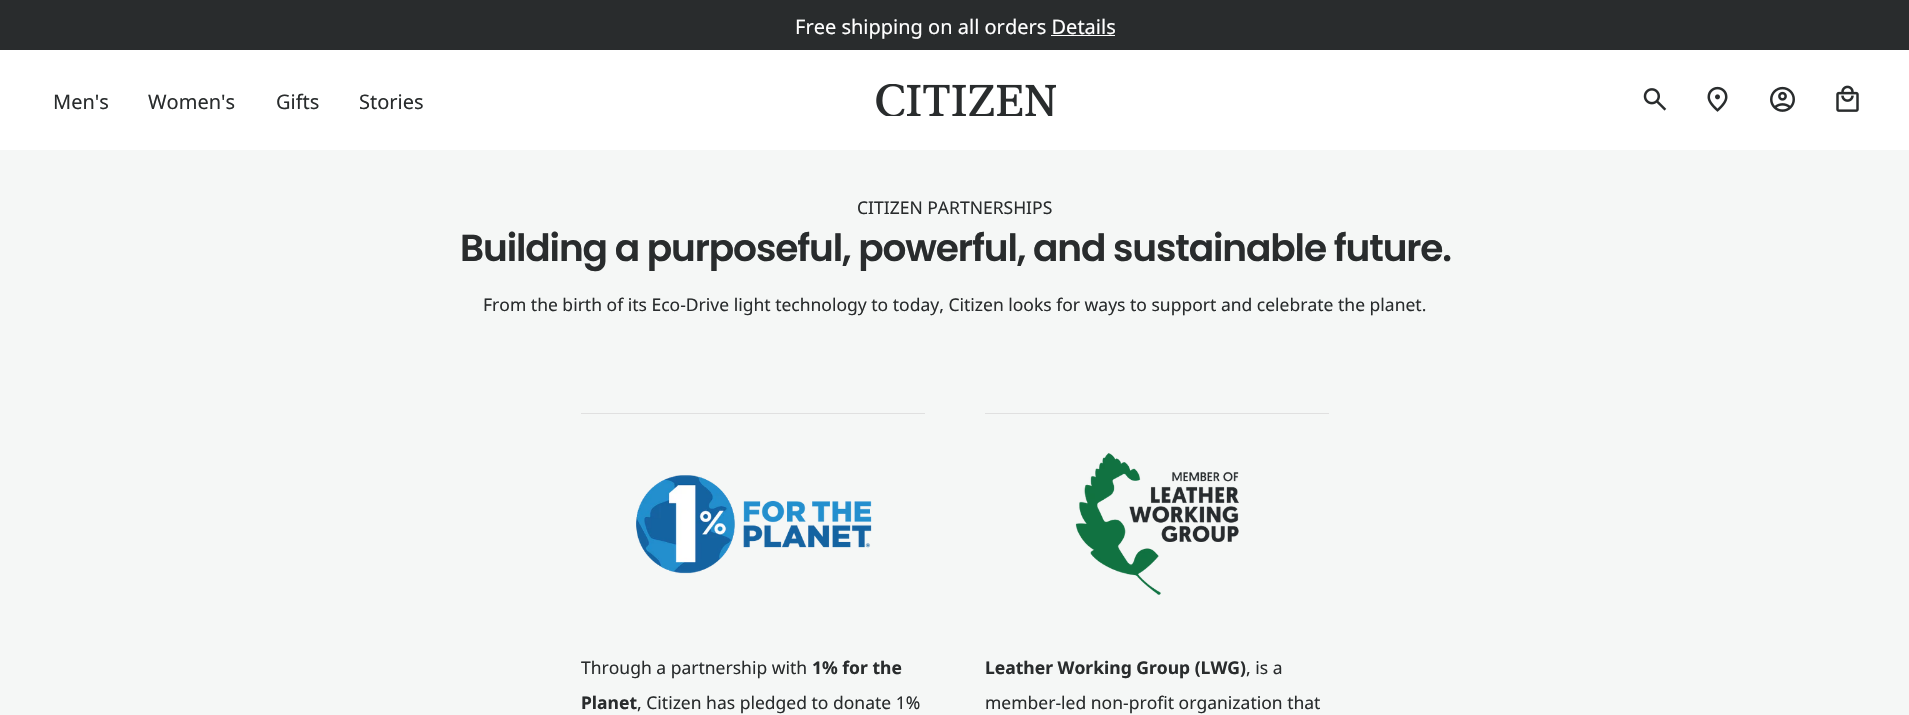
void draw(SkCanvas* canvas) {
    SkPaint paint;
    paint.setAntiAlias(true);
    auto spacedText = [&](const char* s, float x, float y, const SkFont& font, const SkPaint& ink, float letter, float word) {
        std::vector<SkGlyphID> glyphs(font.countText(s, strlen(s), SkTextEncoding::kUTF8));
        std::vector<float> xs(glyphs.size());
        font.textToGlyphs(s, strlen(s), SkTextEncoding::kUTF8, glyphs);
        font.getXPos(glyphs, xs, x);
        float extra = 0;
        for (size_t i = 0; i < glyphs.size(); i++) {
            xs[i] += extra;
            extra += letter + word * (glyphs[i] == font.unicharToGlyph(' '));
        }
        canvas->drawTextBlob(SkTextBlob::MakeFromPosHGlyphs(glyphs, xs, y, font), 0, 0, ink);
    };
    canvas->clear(0xFFFFFFFF);
    paint.setColor(0xFF292C2D);
    canvas->drawRect(SkRect::MakeXYWH(0, 0, 1909, 50), paint);
    SkFont font1(fontMgr->matchFamilyStyle("Noto Sans", SkFontStyle::Normal()), 20);
    font1.setSubpixel(true);
    paint.setColor(0xFFFFFFFF);
    canvas->drawString("Free shipping on all orders Details", 795, 34, font1, paint);
    canvas->drawRect(SkRect::MakeXYWH(1051, 35, 64, 1), paint);
    paint.setColor(0xFF292C2D);
    canvas->drawString("Men's", 53, 109, font1, paint);
    canvas->drawString("Women's", 148, 109, font1, paint);
    canvas->drawString("Gifts", 276, 109, font1, paint);
    canvas->drawString("Stories", 359, 109, font1, paint);
    canvas->drawImageRect(SkImages::DeferredFromEncodedData(SkData::MakeFromFileName("img1.png")), SkRect::MakeXYWH(876, 84, 180, 32), SkSamplingOptions());
    canvas->drawImageRect(SkImages::DeferredFromEncodedData(SkData::MakeFromFileName("img2.png")), SkRect::MakeXYWH(1643, 88, 24, 23), SkSamplingOptions());
    canvas->drawImageRect(SkImages::DeferredFromEncodedData(SkData::MakeFromFileName("img3.png")), SkRect::MakeXYWH(1707, 86, 21, 26), SkSamplingOptions());
    canvas->drawImageRect(SkImages::DeferredFromEncodedData(SkData::MakeFromFileName("img4.png")), SkRect::MakeXYWH(1770, 86, 25, 26), SkSamplingOptions());
    canvas->drawImageRect(SkImages::DeferredFromEncodedData(SkData::MakeFromFileName("img5.png")), SkRect::MakeXYWH(1836, 85, 23, 27), SkSamplingOptions());
    paint.setColor(0xFFF5F7F6);
    canvas->drawRect(SkRect::MakeXYWH(0, 150, 1909, 565), paint);
    SkFont font2(fontMgr->matchFamilyStyle("Noto Sans", SkFontStyle::Normal()), 17.5f);
    font2.setSubpixel(true);
    paint.setColor(0xFF292C2D);
    canvas->drawString("CITIZEN PARTNERSHIPS", 857, 214, font2, paint);
    SkFont font3(fontMgr->matchFamilyStyle("Poppins", SkFontStyle(600, SkFontStyle::kNormal_Width, SkFontStyle::kUpright_Slant)), 37.5f);
    font3.setSubpixel(true);
    spacedText("Building a purposeful, powerful, and sustainable future.", 460, 261, font3, paint, -1.12f, 0);
    canvas->drawString("From the birth of its Eco-Drive light technology to today, Citizen looks for ways to support and celebrate the planet.", 483, 311, font2, paint);
    paint.setColor(0xFFE0E0E0);
    canvas->drawRect(SkRect::MakeXYWH(581, 413, 344, 1), paint);
    canvas->drawImageRect(SkImages::DeferredFromEncodedData(SkData::MakeFromFileName("img6.png")), SkRect::MakeXYWH(636, 475, 236, 99), SkSamplingOptions());
    paint.setColor(0xFF292C2D);
    canvas->drawString("Through a partnership with", 581, 674, font2, paint);
    SkFont font4(fontMgr->matchFamilyStyle("Noto Sans", SkFontStyle::Bold()), 17.5f);
    font4.setSubpixel(true);
    canvas->drawString("1% for the", 812, 674, font4, paint);
    canvas->drawString("Planet", 581, 709, font4, paint);
    canvas->drawString(", Citizen has pledged to donate 1%", 637, 709, font2, paint);
    paint.setColor(0xFFE0E0E0);
    canvas->drawRect(SkRect::MakeXYWH(985, 413, 344, 1), paint);
    canvas->drawImageRect(SkImages::DeferredFromEncodedData(SkData::MakeFromFileName("img7.png")), SkRect::MakeXYWH(1075, 453, 164, 142), SkSamplingOptions());
    paint.setColor(0xFF292C2D);
    canvas->drawString("Leather Working Group (LWG)", 985, 674, font4, paint);
    canvas->drawString(", is a", 1246, 674, font2, paint);
    canvas->drawString("member-led non-profit organization that", 985, 709, font2, paint);
}
